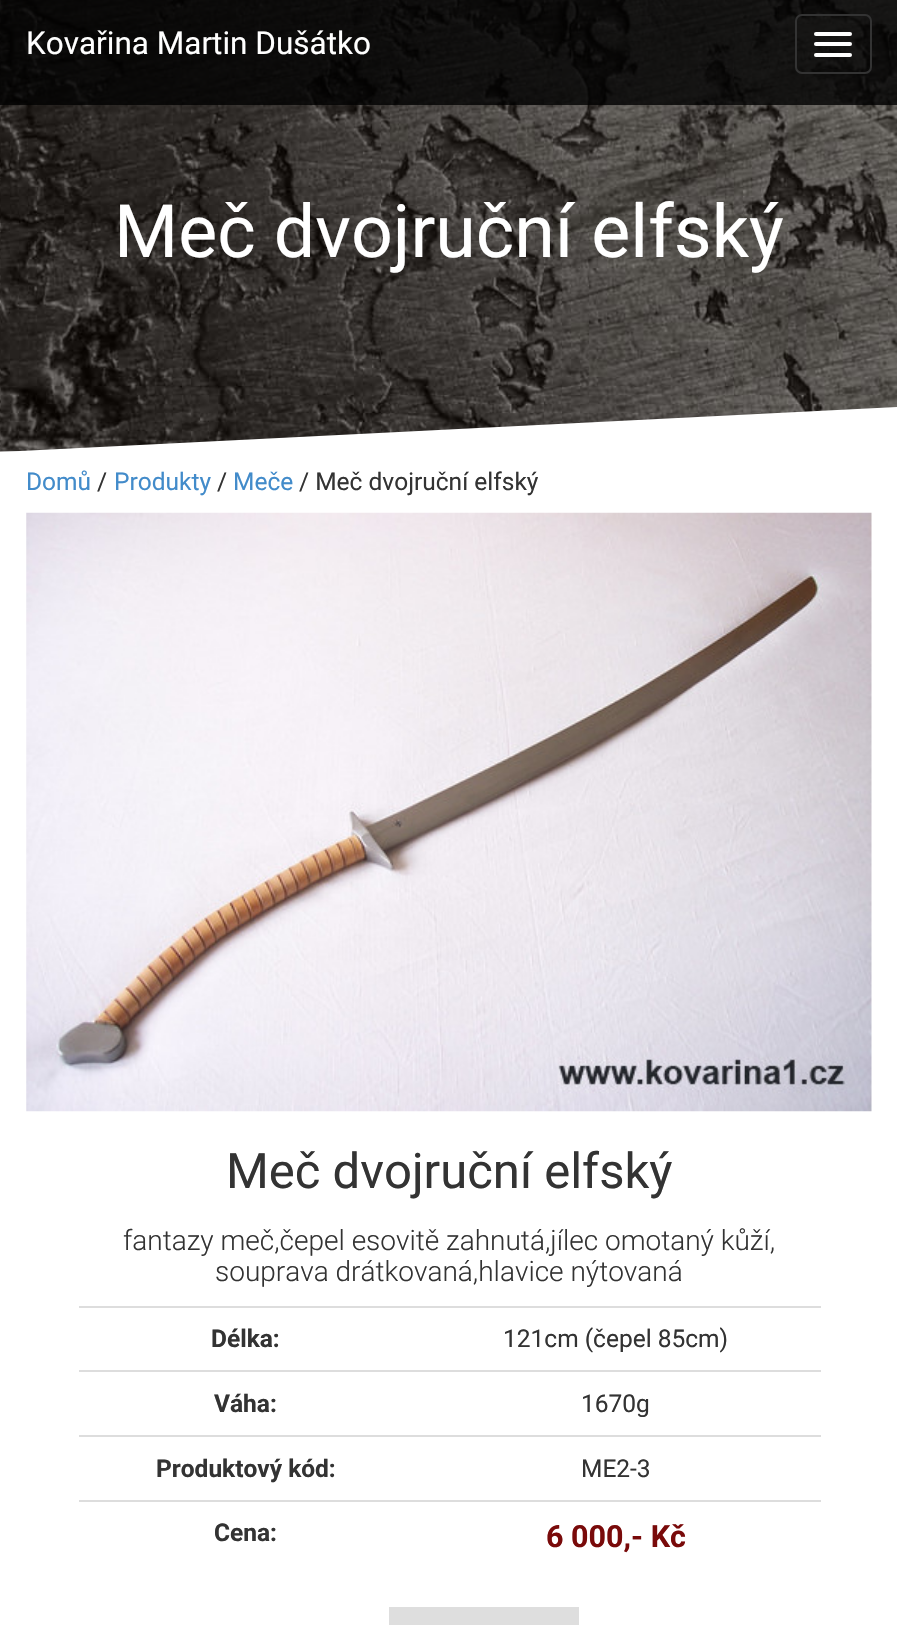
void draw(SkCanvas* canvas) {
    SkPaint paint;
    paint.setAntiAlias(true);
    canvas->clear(0xFFFFFFFF);
    canvas->drawImageRect(SkImages::DeferredFromEncodedData(SkData::MakeFromFileName("img1.png")), SkRect::MakeXYWH(0, 0, 897, 452), SkSamplingOptions());
    paint.setColor(0xCC000000);
    canvas->drawRect(SkRect::MakeXYWH(0, 0, 897, 105), paint);
    SkFont font1(fontMgr->matchFamilyStyle("Roboto", SkFontStyle::Normal()), 31.5f);
    font1.setSubpixel(true);
    paint.setColor(0xFFFFFFFF);
    canvas->drawString("Kovařina Martin Dušátko", 26, 54, font1, paint);
    paint.setStyle(SkPaint::kStroke_Style);
    paint.setStrokeWidth(2);
    paint.setColor(0xFF333333);
    canvas->drawRoundRect(SkRect::MakeXYWH(796, 15, 75, 58), 6, 6, paint);
    paint.setStyle(SkPaint::kFill_Style);
    paint.setColor(0xFFFFFFFF);
    canvas->drawRoundRect(SkRect::MakeXYWH(814, 32, 38, 4), 2, 2, paint);
    canvas->drawRoundRect(SkRect::MakeXYWH(814, 42, 38, 4), 2, 2, paint);
    canvas->drawRoundRect(SkRect::MakeXYWH(814, 53, 38, 4), 2, 2, paint);
    SkFont font2(fontMgr->matchFamilyStyle("Roboto", SkFontStyle::Normal()), 73.5f);
    font2.setSubpixel(true);
    canvas->drawString("Meč dvojruční elfský", 114, 257, font2, paint);
    canvas->drawPath(SkPathBuilder().moveTo(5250, 452).lineTo(0, 452).lineTo(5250, 189).close().detach(), paint);
    SkFont font3(fontMgr->matchFamilyStyle("Roboto", SkFontStyle::Normal()), 24.5f);
    font3.setSubpixel(true);
    paint.setColor(0xFF428BCA);
    canvas->drawString("Domů", 26, 490, font3, paint);
    paint.setColor(0xFF333333);
    canvas->drawString("/", 97, 490, font3, paint);
    paint.setColor(0xFF428BCA);
    canvas->drawString("Produkty", 114, 490, font3, paint);
    paint.setColor(0xFF333333);
    canvas->drawString("/", 217, 490, font3, paint);
    paint.setColor(0xFF428BCA);
    canvas->drawString("Meče", 233, 490, font3, paint);
    paint.setColor(0xFF333333);
    canvas->drawString("/ Meč dvojruční elfský", 299, 490, font3, paint);
    canvas->drawImageRect(SkImages::DeferredFromEncodedData(SkData::MakeFromFileName("img2.png")), SkRect::MakeXYWH(26, 512, 846, 600), SkSamplingOptions());
    SkFont font4(fontMgr->matchFamilyStyle("Roboto", SkFontStyle::Normal()), 49);
    font4.setSubpixel(true);
    canvas->drawString("Meč dvojruční elfský", 226, 1188, font4, paint);
    SkFont font5(fontMgr->matchFamilyStyle("Roboto", SkFontStyle(300, SkFontStyle::kNormal_Width, SkFontStyle::kUpright_Slant)), 28);
    font5.setSubpixel(true);
    canvas->drawString("fantazy meč,čepel esovitě zahnutá,jílec omotaný kůží,", 123, 1250, font5, paint);
    canvas->drawString("souprava drátkovaná,hlavice nýtovaná", 215, 1281, font5, paint);
    SkFont font6(fontMgr->matchFamilyStyle("Roboto", SkFontStyle::Bold()), 24.5f);
    font6.setSubpixel(true);
    canvas->drawString("Délka:", 211, 1347, font6, paint);
    paint.setColor(0xFFDDDDDD);
    canvas->drawRect(SkRect::MakeXYWH(79, 1306, 742, 2), paint);
    paint.setColor(0xFF333333);
    canvas->drawString("121cm (čepel 85cm)", 503, 1347, font3, paint);
    canvas->drawString("Váha:", 214, 1412, font6, paint);
    paint.setColor(0xFFDDDDDD);
    canvas->drawRect(SkRect::MakeXYWH(79, 1370, 742, 2), paint);
    paint.setColor(0xFF333333);
    canvas->drawString("1670g", 581, 1412, font3, paint);
    canvas->drawString("Produktový kód:", 156, 1477, font6, paint);
    paint.setColor(0xFFDDDDDD);
    canvas->drawRect(SkRect::MakeXYWH(79, 1435, 742, 2), paint);
    paint.setColor(0xFF333333);
    canvas->drawString("ME2-3", 581, 1477, font3, paint);
    canvas->drawString("Cena:", 214, 1541, font6, paint);
    paint.setColor(0xFFDDDDDD);
    canvas->drawRect(SkRect::MakeXYWH(79, 1500, 742, 2), paint);
    SkFont font7(fontMgr->matchFamilyStyle("Roboto", SkFontStyle::Bold()), 30.5f);
    font7.setSubpixel(true);
    paint.setColor(0xFF790A0A);
    canvas->drawString("6 000,- Kč", 546, 1547, font7, paint);
    paint.setColor(0xFFDEDEDE);
    canvas->drawRect(SkRect::MakeXYWH(389, 1607, 190, 18), paint);
}
